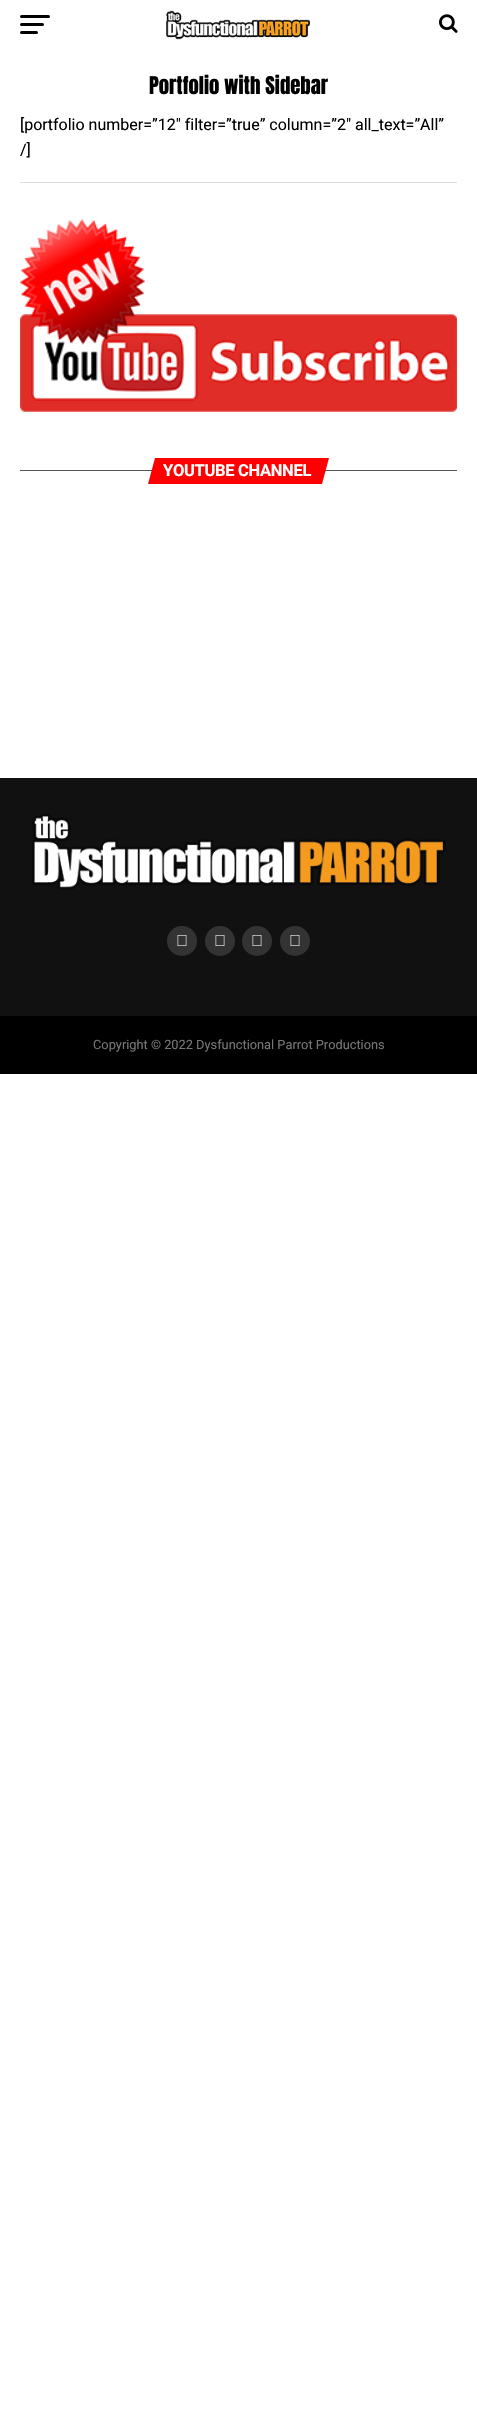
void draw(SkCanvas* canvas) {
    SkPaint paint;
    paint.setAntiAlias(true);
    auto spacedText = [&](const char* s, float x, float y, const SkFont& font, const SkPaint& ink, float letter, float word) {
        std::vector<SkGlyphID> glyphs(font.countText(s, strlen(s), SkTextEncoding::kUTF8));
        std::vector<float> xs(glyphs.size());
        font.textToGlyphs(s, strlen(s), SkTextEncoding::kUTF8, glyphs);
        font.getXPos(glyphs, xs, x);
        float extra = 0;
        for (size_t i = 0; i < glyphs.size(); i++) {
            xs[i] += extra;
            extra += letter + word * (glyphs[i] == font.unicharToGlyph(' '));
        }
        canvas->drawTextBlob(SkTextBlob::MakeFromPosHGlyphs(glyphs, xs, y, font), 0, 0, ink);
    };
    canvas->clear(0xFFFFFFFF);
    paint.setColor(0xFF000000);
    canvas->drawRoundRect(SkRect::MakeXYWH(20, 15, 30, 3), 1.5f, 1.5f, paint);
    canvas->drawRoundRect(SkRect::MakeXYWH(20, 23, 24, 3), 1.5f, 1.5f, paint);
    canvas->drawRoundRect(SkRect::MakeXYWH(20, 31, 18, 3), 1.5f, 1.5f, paint);
    canvas->drawImageRect(SkImages::DeferredFromEncodedData(SkData::MakeFromFileName("img1.png")), SkRect::MakeXYWH(166, 10, 144, 30), SkSamplingOptions());
    canvas->drawImageRect(SkImages::DeferredFromEncodedData(SkData::MakeFromFileName("img2.png")), SkRect::MakeXYWH(439, 14, 19, 19), SkSamplingOptions());
    SkFont font1(fontMgr->matchFamilyStyle("Anton", SkFontStyle::Normal()), 20.75f);
    font1.setSubpixel(true);
    canvas->drawString("Portfolio with Sidebar", 149, 94, font1, paint);
    SkFont font2(fontMgr->matchFamilyStyle("Roboto", SkFontStyle::Normal()), 16);
    font2.setSubpixel(true);
    canvas->drawString("[portfolio number=”12″ filter=”true” column=”2″ all_text=”All”", 20, 130, font2, paint);
    canvas->drawString("/]", 20, 155, font2, paint);
    paint.setColor(0xFFDDDDDD);
    canvas->drawRect(SkRect::MakeXYWH(20, 182, 437, 1), paint);
    canvas->drawImageRect(SkImages::DeferredFromEncodedData(SkData::MakeFromFileName("img3.png")), SkRect::MakeXYWH(20, 219, 437, 193), SkSamplingOptions());
    paint.setColor(0xFF555555);
    canvas->drawRect(SkRect::MakeXYWH(20, 470, 437, 1), paint);
    paint.setColor(0xFFFF0000);
    canvas->drawPath(SkPathBuilder().moveTo(155, 458).lineTo(329, 458).lineTo(322, 484).lineTo(148, 484).close().detach(), paint);
    SkFont font3(fontMgr->matchFamilyStyle("Roboto", SkFontStyle::Bold()), 16.5f);
    font3.setSubpixel(true);
    paint.setColor(0xFFFFFFFF);
    spacedText("YOUTUBE CHANNEL", 163, 476, font3, paint, -0.3f, 0);
    paint.setColor(0xFF111111);
    canvas->drawRect(SkRect::MakeXYWH(0, 778, 477, 238), paint);
    canvas->drawImageRect(SkImages::DeferredFromEncodedData(SkData::MakeFromFileName("img4.png")), SkRect::MakeXYWH(32, 813, 414, 77), SkSamplingOptions());
    paint.setColor(0xFF333333);
    canvas->drawCircle(182, 941, 15, paint);
    canvas->drawImageRect(SkImages::DeferredFromEncodedData(SkData::MakeFromFileName("img5.png")), SkRect::MakeXYWH(177, 935, 10, 11), SkSamplingOptions());
    canvas->drawCircle(220, 941, 15, paint);
    canvas->drawImageRect(SkImages::DeferredFromEncodedData(SkData::MakeFromFileName("img5.png")), SkRect::MakeXYWH(215, 935, 10, 11), SkSamplingOptions());
    canvas->drawCircle(257, 941, 15, paint);
    canvas->drawImageRect(SkImages::DeferredFromEncodedData(SkData::MakeFromFileName("img5.png")), SkRect::MakeXYWH(252, 935, 10, 11), SkSamplingOptions());
    canvas->drawCircle(295, 941, 15, paint);
    canvas->drawImageRect(SkImages::DeferredFromEncodedData(SkData::MakeFromFileName("img5.png")), SkRect::MakeXYWH(290, 935, 10, 11), SkSamplingOptions());
    paint.setColor(0xFF000000);
    canvas->drawRect(SkRect::MakeXYWH(0, 1016, 477, 58), paint);
    SkFont font4(fontMgr->matchFamilyStyle("Roboto", SkFontStyle::Normal()), 12.8f);
    font4.setSubpixel(true);
    paint.setColor(0xFF777777);
    canvas->drawString("Copyright © 2022 Dysfunctional Parrot Productions", 93, 1049, font4, paint);
}
